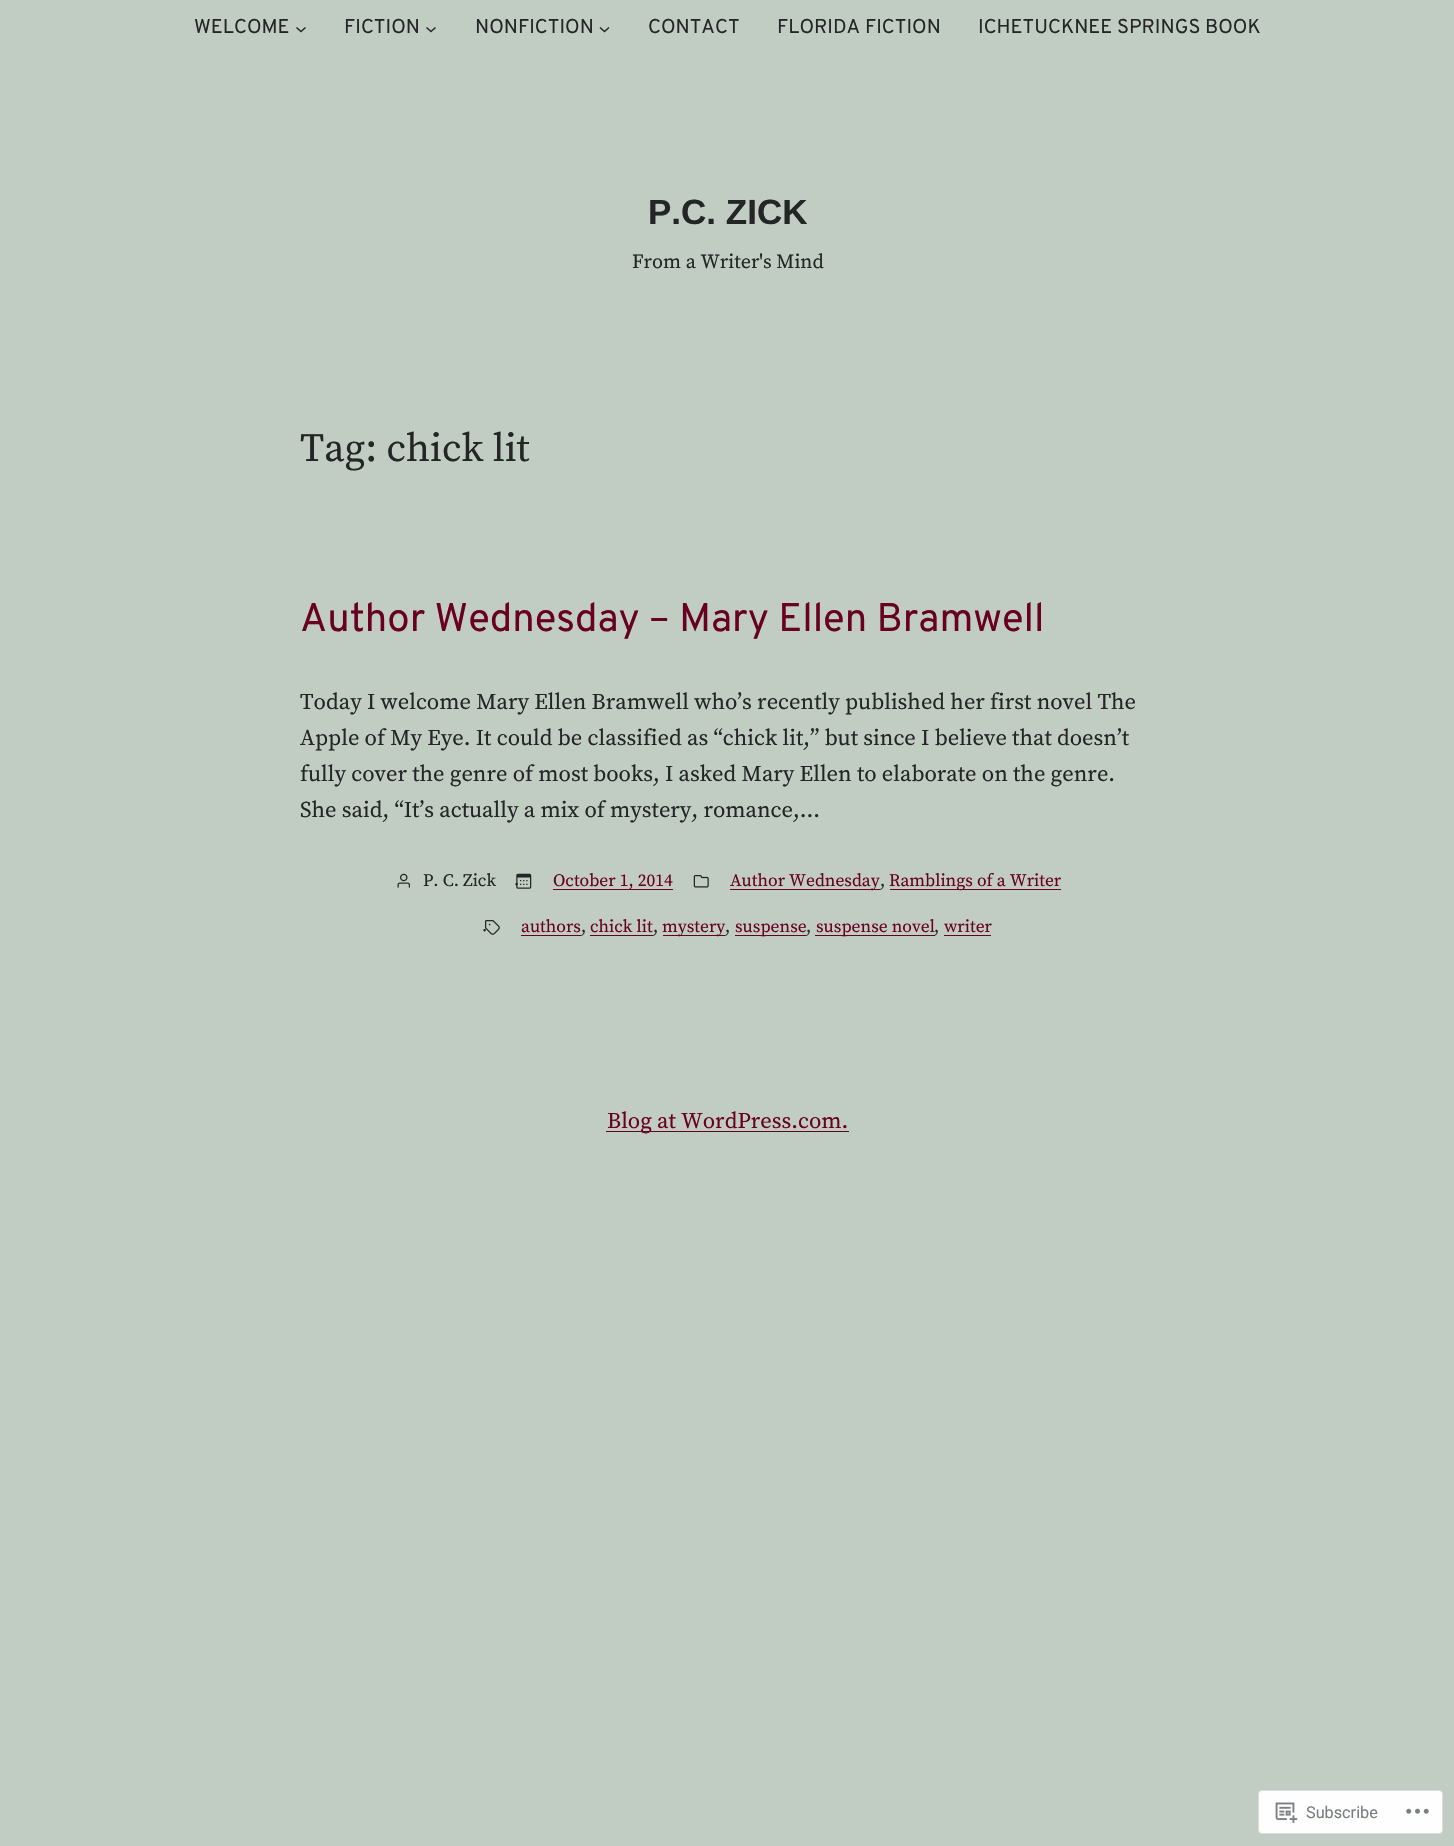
void draw(SkCanvas* canvas) {
    SkPaint paint;
    paint.setAntiAlias(true);
    canvas->clear(0xFFC1CCC2);
    SkFont font1(fontMgr->matchFamilyStyle("Overpass", SkFontStyle::Normal()), 20);
    font1.setSubpixel(true);
    paint.setColor(0xFF242527);
    canvas->drawString("WELCOME", 194, 33, font1, paint);
    paint.setStyle(SkPaint::kStroke_Style);
    paint.setStrokeWidth(1.5f);
    canvas->drawPath(SkPathBuilder().moveTo(296.5f, 27.5f).lineTo(301, 31.5f).lineTo(305.5f, 27.5f).detach(), paint);
    paint.setStyle(SkPaint::kFill_Style);
    canvas->drawString("FICTION", 344, 33, font1, paint);
    paint.setStyle(SkPaint::kStroke_Style);
    canvas->drawPath(SkPathBuilder().moveTo(426.5f, 27.5f).lineTo(431, 31.5f).lineTo(435.5f, 27.5f).detach(), paint);
    paint.setStyle(SkPaint::kFill_Style);
    canvas->drawString("NONFICTION", 475, 33, font1, paint);
    paint.setStyle(SkPaint::kStroke_Style);
    canvas->drawPath(SkPathBuilder().moveTo(600, 27.5f).lineTo(604.5f, 31.5f).lineTo(609, 27.5f).detach(), paint);
    paint.setStyle(SkPaint::kFill_Style);
    canvas->drawString("CONTACT", 648, 33, font1, paint);
    canvas->drawString("FLORIDA FICTION", 777, 33, font1, paint);
    canvas->drawString("ICHETUCKNEE SPRINGS BOOK", 978, 33, font1, paint);
    SkFont font2(fontMgr->matchFamilyStyle("Liberation Sans", SkFontStyle::Bold()), 35);
    font2.setSubpixel(true);
    canvas->drawString("P.C. ZICK", 648, 224, font2, paint);
    SkFont font3(fontMgr->matchFamilyStyle("Source Serif Pro", SkFontStyle::Normal()), 20);
    font3.setSubpixel(true);
    canvas->drawString("From a Writer's Mind", 632, 268, font3, paint);
    SkFont font4(fontMgr->matchFamilyStyle("Source Serif Pro", SkFontStyle::Normal()), 40);
    font4.setSubpixel(true);
    canvas->drawString("Tag: chick lit", 300, 461, font4, paint);
    SkFont font5(fontMgr->matchFamilyStyle("Overpass", SkFontStyle::Normal()), 40);
    font5.setSubpixel(true);
    paint.setColor(0xFF680022);
    canvas->drawString("Author Wednesday – Mary Ellen Bramwell", 300, 631, font5, paint);
    SkFont font6(fontMgr->matchFamilyStyle("Source Serif Pro", SkFontStyle::Normal()), 22.5f);
    font6.setSubpixel(true);
    paint.setColor(0xFF242527);
    canvas->drawString("Today I welcome Mary Ellen Bramwell who’s recently published her first novel The", 300, 709, font6, paint);
    canvas->drawString("Apple of My Eye. It could be classified as “chick lit,” but since I believe that doesn’t", 300, 745, font6, paint);
    canvas->drawString("fully cover the genre of most books, I asked Mary Ellen to elaborate on the genre.", 300, 781, font6, paint);
    canvas->drawString("She said, “It’s actually a mix of mystery, romance,…", 300, 817, font6, paint);
    canvas->drawImageRect(SkImages::DeferredFromEncodedData(SkData::MakeFromFileName("img1.png")), SkRect::MakeXYWH(397, 873, 13, 15), SkSamplingOptions());
    SkFont font7(fontMgr->matchFamilyStyle("Source Serif Pro", SkFontStyle::Normal()), 17.5f);
    font7.setSubpixel(true);
    canvas->drawString("P. C. Zick", 423, 886, font7, paint);
    canvas->drawImageRect(SkImages::DeferredFromEncodedData(SkData::MakeFromFileName("img2.png")), SkRect::MakeXYWH(516, 873, 16, 16), SkSamplingOptions());
    canvas->drawString("·", 514, 890, font7, paint);
    paint.setColor(0xFF680022);
    canvas->drawRect(SkRect::MakeXYWH(553, 889, 120, 1), paint);
    canvas->drawString("October 1, 2014", 553, 886, font7, paint);
    canvas->drawImageRect(SkImages::DeferredFromEncodedData(SkData::MakeFromFileName("img3.png")), SkRect::MakeXYWH(693, 875, 16, 13), SkSamplingOptions());
    canvas->drawRect(SkRect::MakeXYWH(730, 889, 150, 1), paint);
    canvas->drawString("Author Wednesday", 730, 886, font7, paint);
    paint.setColor(0xFF242527);
    canvas->drawString(",", 880, 886, font7, paint);
    paint.setColor(0xFF680022);
    canvas->drawRect(SkRect::MakeXYWH(890, 889, 171, 1), paint);
    canvas->drawString("Ramblings of a Writer", 889, 886, font7, paint);
    canvas->drawImageRect(SkImages::DeferredFromEncodedData(SkData::MakeFromFileName("img4.png")), SkRect::MakeXYWH(485, 920, 15, 15), SkSamplingOptions());
    paint.setColor(0xFF242527);
    canvas->drawString("·", 482, 936, font7, paint);
    paint.setColor(0xFF680022);
    canvas->drawString("authors", 521, 932, font7, paint);
    canvas->drawRect(SkRect::MakeXYWH(521, 935, 60, 1), paint);
    paint.setColor(0xFF242527);
    canvas->drawString(",", 581, 932, font7, paint);
    paint.setColor(0xFF680022);
    canvas->drawString("chick lit", 590, 932, font7, paint);
    canvas->drawRect(SkRect::MakeXYWH(590, 935, 63, 1), paint);
    paint.setColor(0xFF242527);
    canvas->drawString(",", 653, 932, font7, paint);
    paint.setColor(0xFF680022);
    canvas->drawRect(SkRect::MakeXYWH(663, 935, 62, 1), paint);
    canvas->drawString("mystery", 662, 932, font7, paint);
    paint.setColor(0xFF242527);
    canvas->drawString(",", 725, 932, font7, paint);
    paint.setColor(0xFF680022);
    canvas->drawRect(SkRect::MakeXYWH(735, 935, 71, 1), paint);
    canvas->drawString("suspense", 735, 932, font7, paint);
    paint.setColor(0xFF242527);
    canvas->drawString(",", 806, 932, font7, paint);
    paint.setColor(0xFF680022);
    canvas->drawRect(SkRect::MakeXYWH(815, 935, 120, 1), paint);
    canvas->drawString("suspense novel", 816, 932, font7, paint);
    paint.setColor(0xFF242527);
    canvas->drawString(",", 934, 932, font7, paint);
    paint.setColor(0xFF680022);
    canvas->drawString("writer", 944, 932, font7, paint);
    canvas->drawRect(SkRect::MakeXYWH(944, 935, 47, 1), paint);
    canvas->drawRect(SkRect::MakeXYWH(606, 1131, 243, 1), paint);
    canvas->drawString("Blog at WordPress.com.", 607, 1128, font6, paint);
    paint.setColor(0xFFFEFEFE);
    canvas->drawRoundRect(SkRect::MakeXYWH(1258.5f, 1790.5f, 184, 43), 3.5f, 3.5f, paint);
    paint.setStyle(SkPaint::kStroke_Style);
    paint.setStrokeWidth(1);
    paint.setColor(0xFFDBDCDD);
    canvas->drawRoundRect(SkRect::MakeXYWH(1258.5f, 1790.5f, 184, 43), 3.5f, 3.5f, paint);
    canvas->drawImageRect(SkImages::DeferredFromEncodedData(SkData::MakeFromFileName("img5.png")), SkRect::MakeXYWH(1275, 1802, 23, 21), SkSamplingOptions());
    SkFont font8(fontMgr->matchFamilyStyle("Roboto", SkFontStyle::Normal()), 16.25f);
    font8.setSubpixel(true);
    paint.setStyle(SkPaint::kFill_Style);
    paint.setColor(0xFF797E83);
    canvas->drawString("Subscribe", 1306, 1818, font8, paint);
    canvas->drawImageRect(SkImages::DeferredFromEncodedData(SkData::MakeFromFileName("img6.png")), SkRect::MakeXYWH(1406, 1808, 23, 6), SkSamplingOptions());
}
